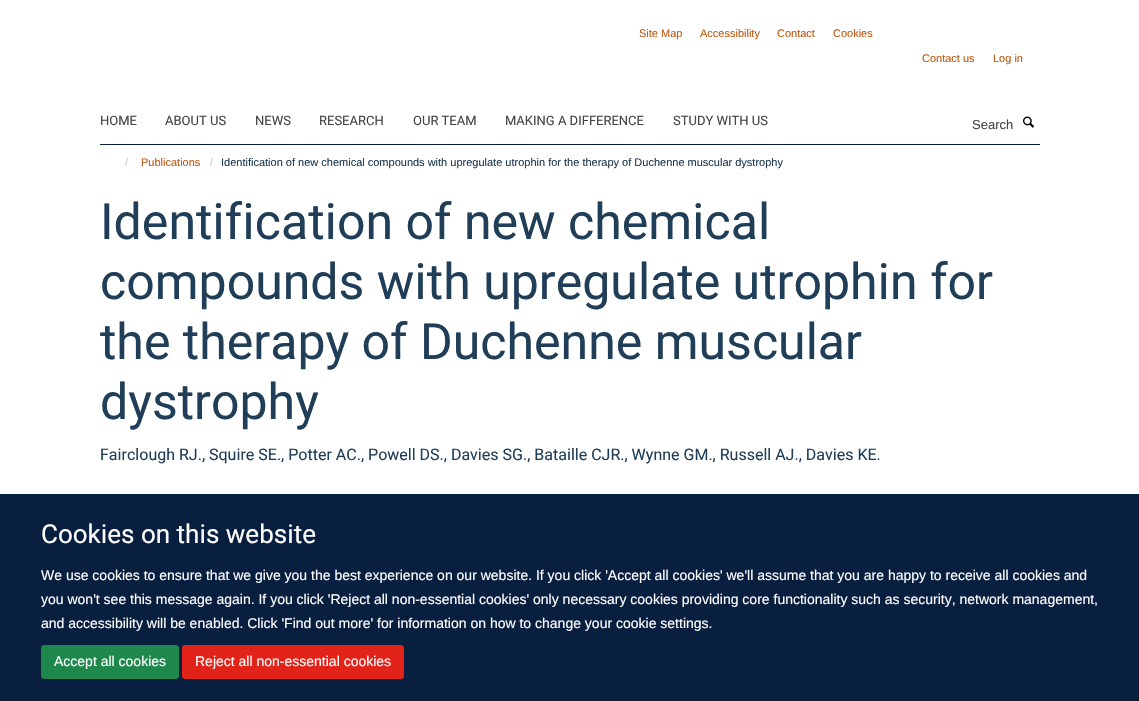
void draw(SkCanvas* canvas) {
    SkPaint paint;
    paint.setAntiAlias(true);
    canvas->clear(0xFFFFFFFF);
    SkFont font1(fontMgr->matchFamilyStyle("Liberation Sans", SkFontStyle::Normal()), 11);
    font1.setSubpixel(true);
    paint.setColor(0xFFC1570E);
    canvas->drawString("Site Map", 639, 37, font1, paint);
    canvas->drawString("Accessibility", 700, 37, font1, paint);
    canvas->drawString("Contact", 777, 37, font1, paint);
    canvas->drawString("Cookies", 833, 37, font1, paint);
    canvas->drawString("Contact us", 922, 62, font1, paint);
    canvas->drawString("Log in", 993, 62, font1, paint);
    paint.setColor(0xFF091F40);
    canvas->drawRect(SkRect::MakeXYWH(100, 144, 940, 1), paint);
    SkFont font2(fontMgr->matchFamilyStyle("Heebo", SkFontStyle::Normal()), 13);
    font2.setSubpixel(true);
    paint.setColor(0xFF444444);
    canvas->drawString("HOME", 100, 125, font2, paint);
    canvas->drawString("ABOUT US", 165, 125, font2, paint);
    canvas->drawString("NEWS", 255, 125, font2, paint);
    canvas->drawString("RESEARCH", 319, 125, font2, paint);
    canvas->drawString("OUR TEAM", 413, 125, font2, paint);
    canvas->drawString("MAKING A DIFFERENCE", 505, 125, font2, paint);
    canvas->drawString("STUDY WITH US", 673, 125, font2, paint);
    SkFont font3(fontMgr->matchFamilyStyle("Liberation Sans", SkFontStyle::Normal()), 13);
    font3.setSubpixel(true);
    canvas->drawString("Search", 972, 129, font3, paint);
    canvas->drawImageRect(SkImages::DeferredFromEncodedData(SkData::MakeFromFileName("img1.png")), SkRect::MakeXYWH(1023, 116, 11, 12), SkSamplingOptions());
    paint.setColor(0xFFCCCCCC);
    canvas->drawString("/", 125, 166, font1, paint);
    paint.setColor(0xFFC1570E);
    canvas->drawString("Publications", 141, 166, font1, paint);
    paint.setColor(0xFFCCCCCC);
    canvas->drawString("/", 210, 166, font1, paint);
    paint.setColor(0xFF1D3850);
    canvas->drawString("Identification of new chemical compounds with upregulate utrophin for the therapy of Duchenne muscular dystrophy", 221, 166, font1, paint);
    SkFont font4(fontMgr->matchFamilyStyle("Heebo", SkFontStyle::Normal()), 50);
    font4.setSubpixel(true);
    paint.setColor(0xFF203E58);
    canvas->drawString("Identification of new chemical", 100, 239, font4, paint);
    canvas->drawString("compounds with upregulate utrophin for", 100, 299, font4, paint);
    canvas->drawString("the therapy of Duchenne muscular", 100, 359, font4, paint);
    canvas->drawString("dystrophy", 100, 419, font4, paint);
    SkFont font5(fontMgr->matchFamilyStyle("Heebo", SkFontStyle::Normal()), 16);
    font5.setSubpixel(true);
    canvas->drawString("Fairclough RJ., Squire SE., Potter AC., Powell DS., Davies SG., Bataille CJR., Wynne GM., Russell AJ., Davies KE.", 100, 460, font5, paint);
    paint.setColor(0xFF091F40);
    canvas->drawRect(SkRect::MakeXYWH(0, 494, 1139, 207), paint);
    SkFont font6(fontMgr->matchFamilyStyle("Heebo", SkFontStyle::Normal()), 26);
    font6.setSubpixel(true);
    paint.setColor(0xFFFFFFFF);
    canvas->drawString("Cookies on this website", 41, 543, font6, paint);
    SkFont font7(fontMgr->matchFamilyStyle("Liberation Sans", SkFontStyle::Normal()), 14);
    font7.setSubpixel(true);
    canvas->drawString("We use cookies to ensure that we give you the best experience on our website. If you click 'Accept all cookies' we'll assume that you are happy to receive all cookies and", 41, 580, font7, paint);
    canvas->drawString("you won't see this message again. If you click 'Reject all non-essential cookies' only necessary cookies providing core functionality such as security, network management,", 41, 604, font7, paint);
    canvas->drawString("and accessibility will be enabled. Click 'Find out more' for information on how to change your cookie settings.", 41, 628, font7, paint);
    paint.setColor(0xFF1E874B);
    canvas->drawRoundRect(SkRect::MakeXYWH(41.5f, 645.5f, 137, 33), 2.5f, 2.5f, paint);
    paint.setStyle(SkPaint::kStroke_Style);
    paint.setStrokeWidth(1);
    canvas->drawRoundRect(SkRect::MakeXYWH(41.5f, 645.5f, 137, 33), 2.5f, 2.5f, paint);
    paint.setStyle(SkPaint::kFill_Style);
    paint.setColor(0xFFFFFFFF);
    canvas->drawString("Accept all cookies", 54, 666, font7, paint);
    paint.setColor(0xFFE2231A);
    canvas->drawRoundRect(SkRect::MakeXYWH(182.5f, 645.5f, 221, 33), 2.5f, 2.5f, paint);
    paint.setStyle(SkPaint::kStroke_Style);
    canvas->drawRoundRect(SkRect::MakeXYWH(182.5f, 645.5f, 221, 33), 2.5f, 2.5f, paint);
    paint.setStyle(SkPaint::kFill_Style);
    paint.setColor(0xFFFFFFFF);
    canvas->drawString("Reject all non-essential cookies", 195, 666, font7, paint);
}
